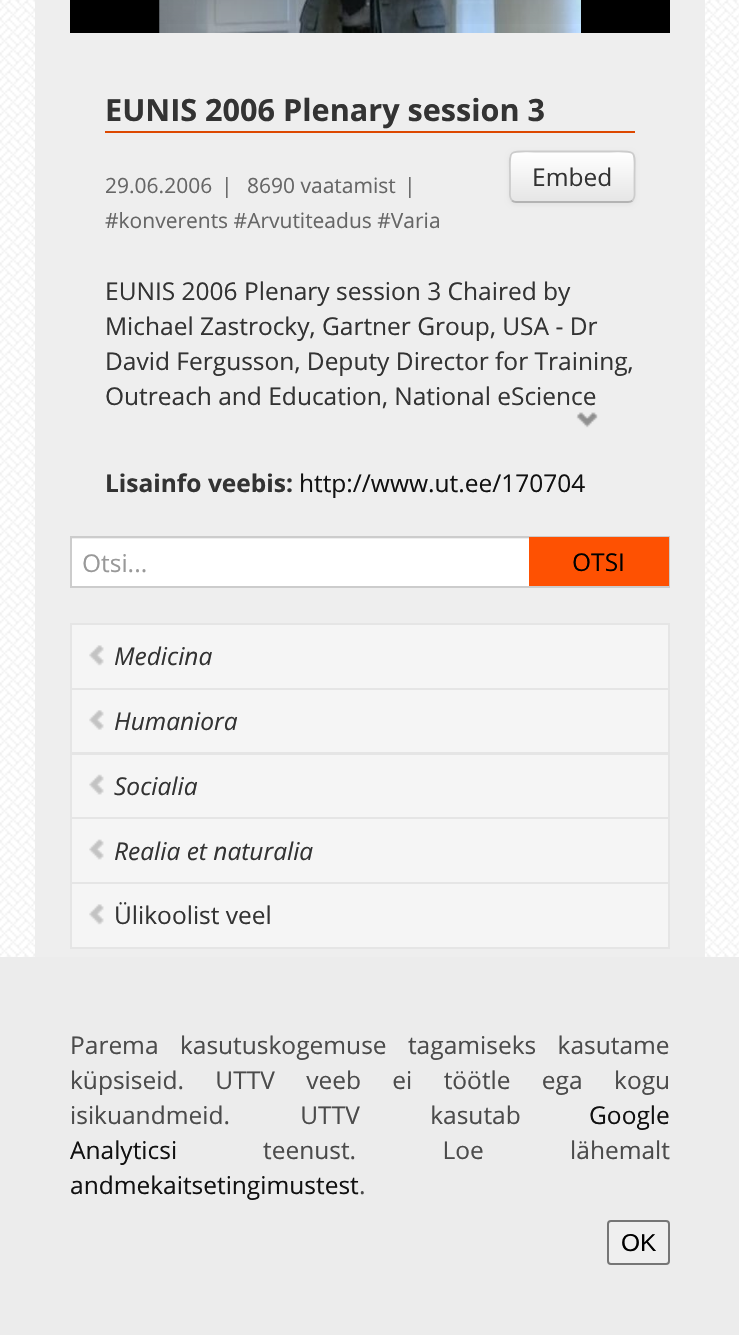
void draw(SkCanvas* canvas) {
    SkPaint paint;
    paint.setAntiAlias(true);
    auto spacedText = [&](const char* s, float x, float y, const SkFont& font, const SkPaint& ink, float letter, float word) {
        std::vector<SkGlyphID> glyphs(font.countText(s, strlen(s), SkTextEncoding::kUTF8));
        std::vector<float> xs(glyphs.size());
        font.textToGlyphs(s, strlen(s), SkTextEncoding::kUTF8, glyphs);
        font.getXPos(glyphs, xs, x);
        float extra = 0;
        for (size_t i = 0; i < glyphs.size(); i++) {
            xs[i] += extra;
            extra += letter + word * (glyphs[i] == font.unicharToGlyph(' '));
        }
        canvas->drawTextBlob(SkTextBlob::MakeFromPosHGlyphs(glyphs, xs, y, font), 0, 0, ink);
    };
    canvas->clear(0xFFFFFFFF);
    canvas->drawImageRect(SkImages::DeferredFromEncodedData(SkData::MakeFromFileName("img1.png")), SkRect::MakeXYWH(0, 0, 739, 957), SkSamplingOptions());
    paint.setColor(0xFFEEEEEE);
    canvas->drawRect(SkRect::MakeXYWH(35, 0, 670, 957), paint);
    paint.setColor(0xFF000000);
    canvas->drawRect(SkRect::MakeXYWH(70, 0, 600, 33), paint);
    canvas->drawImageRect(SkImages::DeferredFromEncodedData(SkData::MakeFromFileName("img2.png")), SkRect::MakeXYWH(159, 0, 422, 33), SkSamplingOptions());
    {
        const SkColor colors[] = {0xCC000000, 0x00000000};
        const float stops[] = {0, 1};
        const SkPoint ends[] = {{370, -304}, {370, 33}};
        paint.setShader(SkGradientShader::MakeLinear(ends, colors, stops, 2, SkTileMode::kClamp));
        paint.setAlpha(255);
    }
    canvas->drawRect(SkRect::MakeXYWH(159, 0, 422, 24), paint);
    paint.setShader(nullptr);
    paint.setColor(0xFFDD4800);
    canvas->drawRect(SkRect::MakeXYWH(105, 131, 530, 2), paint);
    SkFont font1(fontMgr->matchFamilyStyle("Open Sans", SkFontStyle::Bold()), 30.6f);
    font1.setSubpixel(true);
    paint.setColor(0xFF333333);
    canvas->drawString("EUNIS 2006 Plenary session 3", 105, 121, font1, paint);
    SkFont font2(fontMgr->matchFamilyStyle("Open Sans", SkFontStyle::Normal()), 21);
    font2.setSubpixel(true);
    paint.setColor(0xFF666666);
    canvas->drawString("29.06.2006", 105, 193, font2, paint);
    canvas->drawString("|", 221, 193, font2, paint);
    canvas->drawString("8690 vaatamist", 247, 193, font2, paint);
    canvas->drawString("|", 404, 193, font2, paint);
    canvas->drawString("#konverents #Arvutiteadus #Varia", 105, 228, font2, paint);
    paint.setColor(0x0D000000);
    paint.setMaskFilter(SkMaskFilter::MakeBlur(kNormal_SkBlurStyle, 2));
    canvas->drawRoundRect(SkRect::MakeXYWH(509, 152, 126, 53), 7, 7, paint);
    paint.setMaskFilter(nullptr);
    canvas->save();
    canvas->clipPath(SkPathBuilder().moveTo(516, 151).lineTo(628, 151).cubicTo(632, 151, 635, 154, 635, 158).lineTo(635, 196).cubicTo(635, 200, 632, 203, 628, 203).lineTo(516, 203).cubicTo(512, 203, 509, 200, 509, 196).lineTo(509, 158).cubicTo(509, 154, 512, 151, 516, 151).close().detach(), true);
    {
        const SkColor colors[] = {0xFFFFFFFF, 0xFFE6E6E6};
        const float stops[] = {0, 1};
        const SkPoint ends[] = {{572, 152}, {572, 201}};
        paint.setShader(SkGradientShader::MakeLinear(ends, colors, stops, 2, SkTileMode::kClamp));
        paint.setAlpha(255);
    }
    canvas->drawRect(SkRect::MakeXYWH(509, 152, 126, 49), paint);
    canvas->restore();
    paint.setStyle(SkPaint::kStroke_Style);
    paint.setStrokeWidth(1.8f);
    paint.setShader(nullptr);
    paint.setColor(0xFFB3B3B3);
    canvas->drawPath(SkPathBuilder().moveTo(632.5f, 200.5f).cubicTo(631.5f, 201.5f, 630, 202, 628, 202).lineTo(516, 202).cubicTo(514.5f, 202, 513, 201.5f, 512, 200.5f).detach(), paint);
    paint.setColor(0xFFCCCCCC);
    canvas->drawPath(SkPathBuilder().moveTo(512, 200.5f).cubicTo(509, 197.5f, 510, 193, 510, 189.5f).lineTo(510, 177).cubicTo(510, 148.5f, 506, 151.5f, 535, 151.5f).lineTo(609.5f, 151.5f).cubicTo(638.5f, 151.5f, 634.5f, 148.5f, 634.5f, 177).lineTo(634.5f, 189.5f).cubicTo(634.5f, 193, 635.5f, 197.5f, 632.5f, 200.5f).detach(), paint);
    SkFont font3(fontMgr->matchFamilyStyle("Open Sans", SkFontStyle::Normal()), 24.5f);
    font3.setSubpixel(true);
    paint.setStyle(SkPaint::kFill_Style);
    paint.setColor(0xFF333333);
    canvas->drawString("Embed", 532, 186, font3, paint);
    canvas->drawString("EUNIS 2006 Plenary session 3 Chaired by", 105, 300, font3, paint);
    canvas->drawString("Michael Zastrocky, Gartner Group, USA - Dr", 105, 335, font3, paint);
    canvas->drawString("David Fergusson, Deputy Director for Training,", 105, 370, font3, paint);
    canvas->drawString("Outreach and Education, National eScience", 105, 405, font3, paint);
    canvas->drawImageRect(SkImages::DeferredFromEncodedData(SkData::MakeFromFileName("img3.png")), SkRect::MakeXYWH(576, 412, 22, 17), SkSamplingOptions());
    SkFont font4(fontMgr->matchFamilyStyle("Open Sans", SkFontStyle::Bold()), 24.5f);
    font4.setSubpixel(true);
    canvas->drawString("Lisainfo veebis:", 105, 492, font4, paint);
    paint.setColor(0xFF111111);
    canvas->drawString("http://www.ut.ee/170704", 299, 492, font3, paint);
    paint.setColor(0xFFFFFFFF);
    canvas->drawRect(SkRect::MakeXYWH(72, 539, 457, 47), paint);
    paint.setStyle(SkPaint::kStroke_Style);
    paint.setStrokeWidth(2);
    paint.setColor(0xFFCCCCCC);
    canvas->drawRect(SkRect::MakeXYWH(71, 537, 598, 50), paint);
    paint.setStyle(SkPaint::kFill_Style);
    paint.setColor(0xFF999999);
    canvas->drawString("Otsi...", 82, 572, font3, paint);
    paint.setColor(0xFFFE5102);
    canvas->drawRect(SkRect::MakeXYWH(529, 537, 140, 49), paint);
    paint.setColor(0xFF000000);
    canvas->drawString("OTSI", 572, 571, font3, paint);
    paint.setColor(0xFFF5F5F5);
    canvas->drawRect(SkRect::MakeXYWH(72, 625, 596, 322), paint);
    paint.setStyle(SkPaint::kStroke_Style);
    paint.setColor(0xFFE5E5E5);
    canvas->drawRect(SkRect::MakeXYWH(71, 624, 598, 65), paint);
    canvas->drawImageRect(SkImages::DeferredFromEncodedData(SkData::MakeFromFileName("img4.png")), SkRect::MakeXYWH(89, 645, 15, 21), SkSamplingOptions());
    SkFont font5(fontMgr->matchFamilyStyle("Open Sans", SkFontStyle::Italic()), 24.5f);
    font5.setSubpixel(true);
    paint.setStyle(SkPaint::kFill_Style);
    paint.setColor(0xFF333333);
    canvas->drawString("Medicina", 114, 665, font5, paint);
    paint.setStyle(SkPaint::kStroke_Style);
    paint.setColor(0xFFE5E5E5);
    canvas->drawRect(SkRect::MakeXYWH(71, 689, 598, 64), paint);
    canvas->drawImageRect(SkImages::DeferredFromEncodedData(SkData::MakeFromFileName("img5.png")), SkRect::MakeXYWH(89, 710, 15, 20), SkSamplingOptions());
    paint.setStyle(SkPaint::kFill_Style);
    paint.setColor(0xFF333333);
    canvas->drawString("Humaniora", 114, 730, font5, paint);
    paint.setStyle(SkPaint::kStroke_Style);
    paint.setColor(0xFFE5E5E5);
    canvas->drawRect(SkRect::MakeXYWH(71, 754, 598, 64), paint);
    canvas->drawImageRect(SkImages::DeferredFromEncodedData(SkData::MakeFromFileName("img6.png")), SkRect::MakeXYWH(89, 774, 15, 21), SkSamplingOptions());
    paint.setStyle(SkPaint::kFill_Style);
    paint.setColor(0xFF333333);
    canvas->drawString("Socialia", 114, 795, font5, paint);
    paint.setStyle(SkPaint::kStroke_Style);
    paint.setColor(0xFFE5E5E5);
    canvas->drawRect(SkRect::MakeXYWH(71, 818, 598, 65), paint);
    canvas->drawImageRect(SkImages::DeferredFromEncodedData(SkData::MakeFromFileName("img7.png")), SkRect::MakeXYWH(89, 839, 15, 21), SkSamplingOptions());
    paint.setStyle(SkPaint::kFill_Style);
    paint.setColor(0xFF333333);
    canvas->drawString("Realia et naturalia", 114, 860, font5, paint);
    paint.setStyle(SkPaint::kStroke_Style);
    paint.setColor(0xFFE5E5E5);
    canvas->drawRect(SkRect::MakeXYWH(71, 883, 598, 65), paint);
    canvas->drawImageRect(SkImages::DeferredFromEncodedData(SkData::MakeFromFileName("img4.png")), SkRect::MakeXYWH(89, 904, 15, 21), SkSamplingOptions());
    paint.setStyle(SkPaint::kFill_Style);
    paint.setColor(0xFF333333);
    canvas->drawString("Ülikoolist veel", 114, 924, font3, paint);
    paint.setColor(0xFFECECEC);
    canvas->drawRect(SkRect::MakeXYWH(0, 957, 739, 378), paint);
    paint.setColor(0xFF4B4B4B);
    spacedText("Parema kasutuskogemuse tagamiseks kasutame", 70, 1054, font3, paint, 0, 15);
    spacedText("küpsiseid. UTTV veeb ei töötle ega kogu", 70, 1089, font3, paint, 0, 25);
    spacedText("isikuandmeid. UTTV kasutab", 70, 1124, font3, paint, 0, 64);
    paint.setColor(0xFF111111);
    canvas->drawString("Google", 589, 1124, font3, paint);
    canvas->drawString("Analyticsi", 70, 1159, font3, paint);
    paint.setColor(0xFF4B4B4B);
    spacedText("teenust. Loe lähemalt", 263, 1159, font3, paint, 0, 80);
    paint.setColor(0xFF111111);
    canvas->drawString("andmekaitsetingimustest", 70, 1194, font3, paint);
    paint.setColor(0xFF4B4B4B);
    canvas->drawString(".", 359, 1194, font3, paint);
    paint.setColor(0xFFEFEFEF);
    canvas->drawRoundRect(SkRect::MakeXYWH(608, 1221, 61, 43), 3, 3, paint);
    paint.setStyle(SkPaint::kStroke_Style);
    paint.setColor(0xFF767676);
    canvas->drawRoundRect(SkRect::MakeXYWH(608, 1221, 61, 43), 3, 3, paint);
    SkFont font6(fontMgr->matchFamilyStyle("Liberation Sans", SkFontStyle::Normal()), 24.5f);
    font6.setSubpixel(true);
    paint.setStyle(SkPaint::kFill_Style);
    paint.setColor(0xFF000000);
    canvas->drawString("OK", 621, 1251, font6, paint);
}
